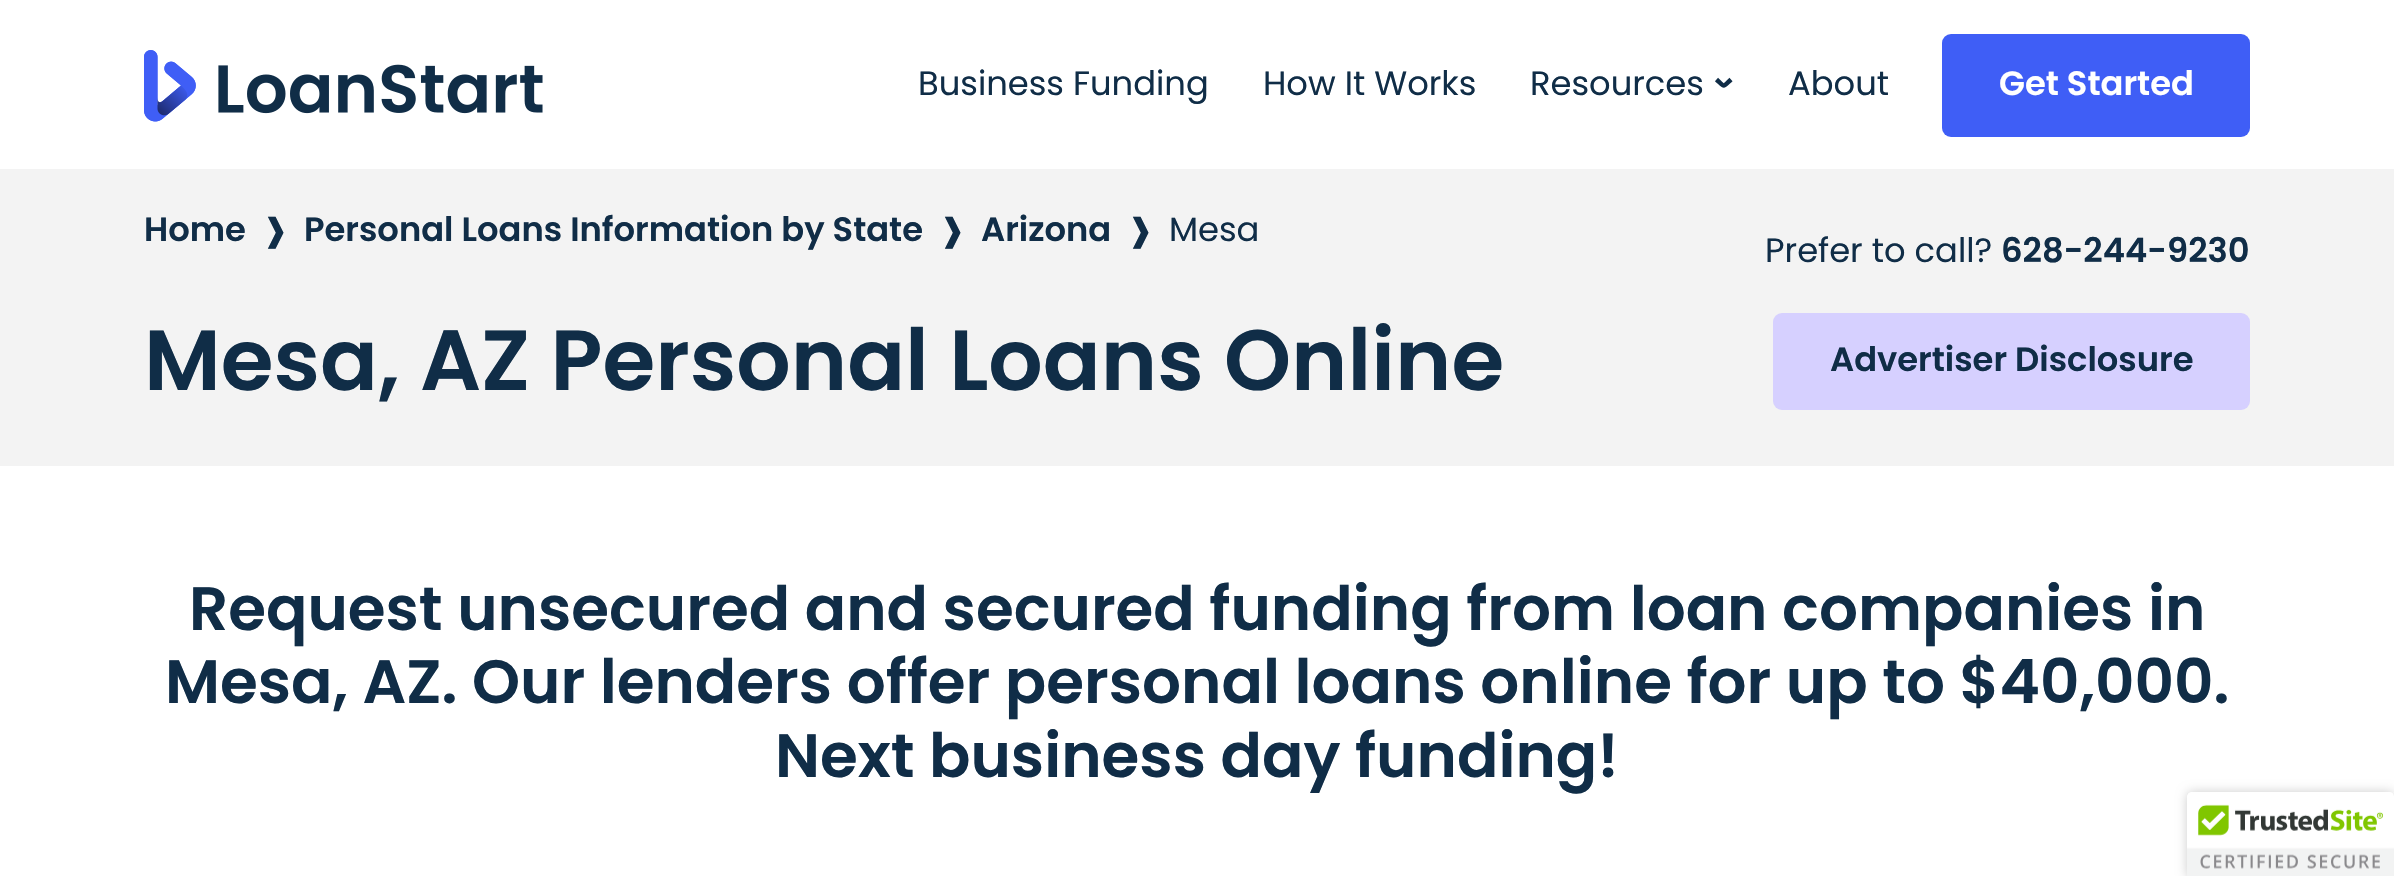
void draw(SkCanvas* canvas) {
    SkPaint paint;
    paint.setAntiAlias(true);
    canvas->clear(0xFFFFFFFF);
    canvas->drawImageRect(SkImages::DeferredFromEncodedData(SkData::MakeFromFileName("img1.png")), SkRect::MakeXYWH(144, 50, 399, 72), SkSamplingOptions());
    SkFont font1(fontMgr->matchFamilyStyle("Poppins", SkFontStyle::Normal()), 33.75f);
    font1.setSubpixel(true);
    paint.setColor(0xFF102D47);
    canvas->drawString("Business Funding", 918, 95, font1, paint);
    canvas->drawString("How It Works", 1263, 95, font1, paint);
    canvas->drawString("Resources", 1530, 95, font1, paint);
    paint.setStyle(SkPaint::kStroke_Style);
    paint.setStrokeWidth(4.5f);
    canvas->drawPath(SkPathBuilder().moveTo(1716.5f, 79.5f).cubicTo(1725, 87.5f, 1722.5f, 87.5f, 1731, 79.5f).detach(), paint);
    paint.setStyle(SkPaint::kFill_Style);
    canvas->drawString("About", 1788, 95, font1, paint);
    paint.setColor(0xFF3F5EF6);
    canvas->drawRoundRect(SkRect::MakeXYWH(1942, 34, 308, 103), 9, 9, paint);
    SkFont font2(fontMgr->matchFamilyStyle("Poppins", SkFontStyle(600, SkFontStyle::kNormal_Width, SkFontStyle::kUpright_Slant)), 33.75f);
    font2.setSubpixel(true);
    paint.setColor(0xFFFFFFFF);
    canvas->drawString("Get Started", 1999, 95, font2, paint);
    paint.setColor(0xFFF3F3F3);
    canvas->drawRect(SkRect::MakeXYWH(0, 169, 2394, 297), paint);
    paint.setColor(0xFF102D47);
    canvas->drawString("Home", 144, 241, font2, paint);
    SkFont font3(fontMgr->matchFamilyStyle("DejaVu Sans", SkFontStyle::Normal()), 32);
    font3.setSubpixel(true);
    canvas->drawString("❱", 262, 241, font3, paint);
    canvas->drawString("Personal Loans Information by State", 304, 241, font2, paint);
    canvas->drawString("❱", 939, 241, font3, paint);
    canvas->drawString("Arizona", 981, 241, font2, paint);
    canvas->drawString("❱", 1127, 241, font3, paint);
    canvas->drawString("Mesa", 1169, 241, font1, paint);
    SkFont font4(fontMgr->matchFamilyStyle("Poppins", SkFontStyle(600, SkFontStyle::kNormal_Width, SkFontStyle::kUpright_Slant)), 85.4f);
    font4.setSubpixel(true);
    canvas->drawString("Mesa, AZ Personal Loans Online", 144, 390, font4, paint);
    canvas->drawString("Prefer to call?", 1765, 262, font1, paint);
    canvas->drawString("628-244-9230", 2001, 262, font2, paint);
    paint.setColor(0xFFD6D0FF);
    canvas->drawRoundRect(SkRect::MakeXYWH(1773, 313, 477, 97), 9, 9, paint);
    paint.setColor(0xFF102D47);
    canvas->drawString("Advertiser Disclosure", 1830, 371, font2, paint);
    SkFont font5(fontMgr->matchFamilyStyle("Poppins", SkFontStyle(600, SkFontStyle::kNormal_Width, SkFontStyle::kUpright_Slant)), 61.15f);
    font5.setSubpixel(true);
    canvas->drawString("Request unsecured and secured funding from loan companies in", 189, 630, font5, paint);
    canvas->drawString("Mesa, AZ. Our lenders offer personal loans online for up to $40,000.", 165, 703, font5, paint);
    canvas->drawString("Next business day funding!", 775, 777, font5, paint);
    paint.setColor(0x33000000);
    paint.setMaskFilter(SkMaskFilter::MakeBlur(kNormal_SkBlurStyle, 5.5f));
    canvas->drawRoundRect(SkRect::MakeXYWH(2187, 792, 207, 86), 5, 5, paint);
    paint.setMaskFilter(nullptr);
    paint.setColor(0xFFFFFFFF);
    canvas->drawPath(SkPathBuilder().moveTo(2192, 792).lineTo(2394, 792).lineTo(2394, 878).lineTo(2187, 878).lineTo(2187, 797).cubicTo(2187, 794, 2189, 792, 2192, 792).close().detach(), paint);
    canvas->drawImageRect(SkImages::DeferredFromEncodedData(SkData::MakeFromFileName("img2.png")), SkRect::MakeXYWH(2187, 792, 207, 84), SkSamplingOptions());
}
